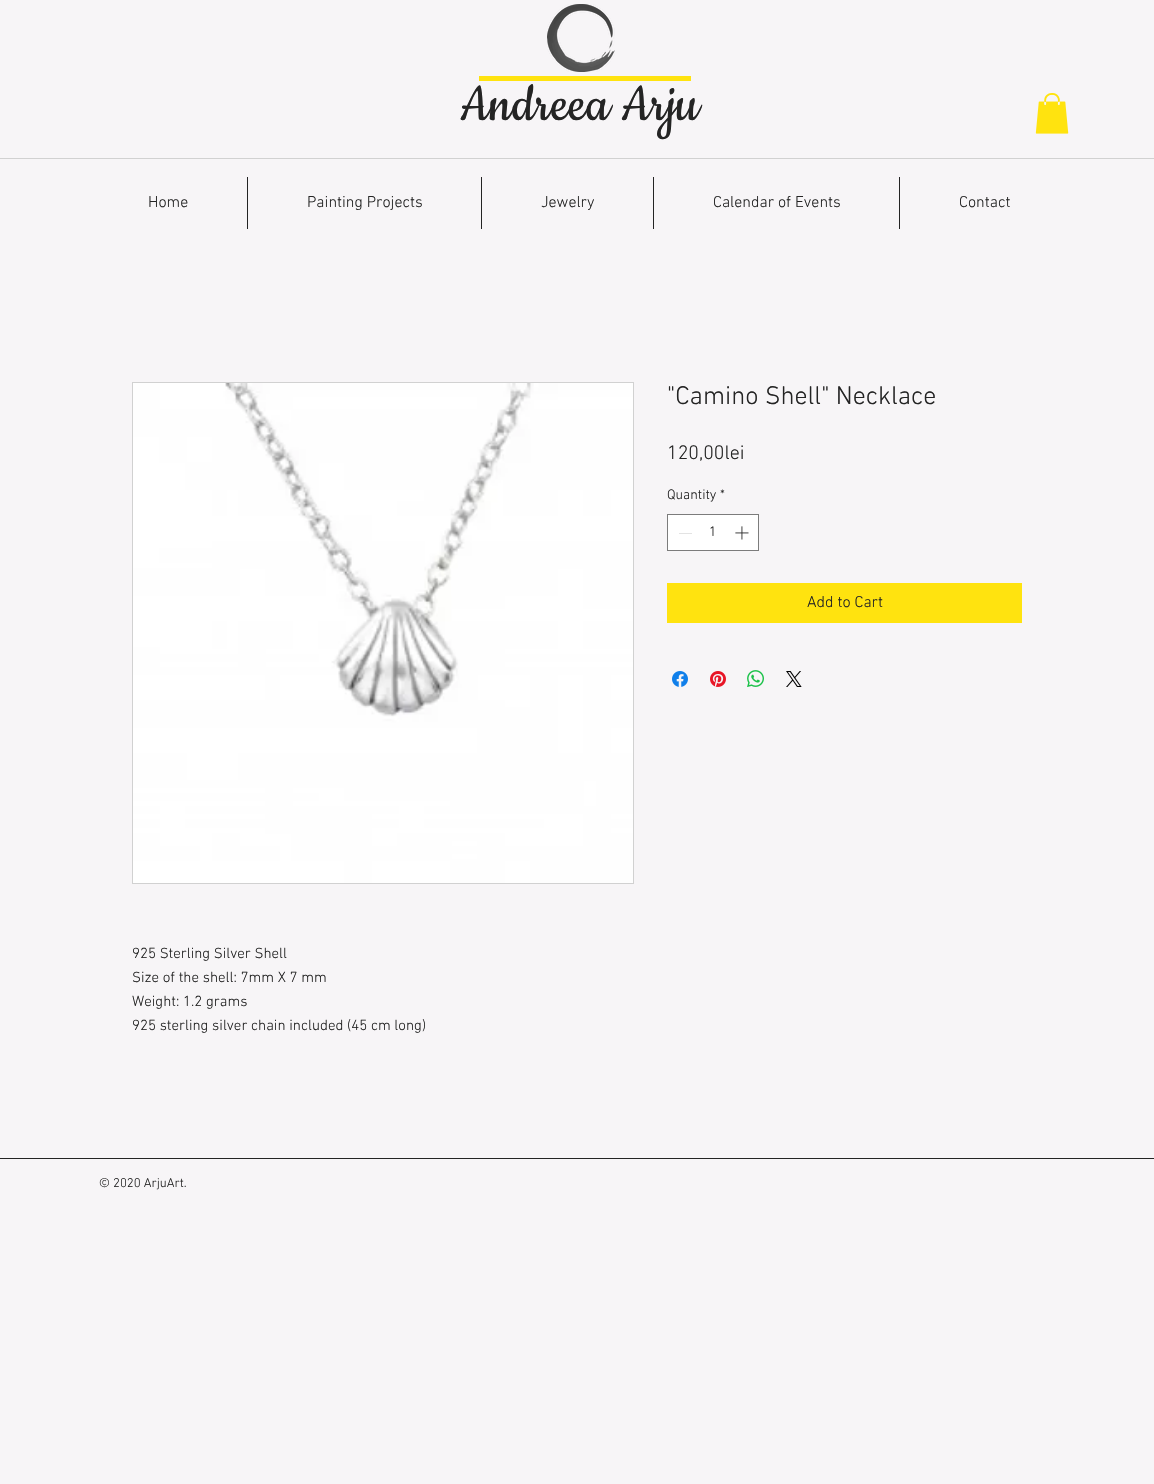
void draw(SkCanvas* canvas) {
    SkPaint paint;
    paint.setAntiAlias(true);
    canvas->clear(0xFFF7F5F7);
    canvas->drawImageRect(SkImages::DeferredFromEncodedData(SkData::MakeFromFileName("img1.png")), SkRect::MakeXYWH(547, 4, 68, 68), SkSamplingOptions());
    paint.setColor(0xFFFFE30F);
    canvas->drawRect(SkRect::MakeXYWH(479, 76, 212, 5), paint);
    SkFont font1(fontMgr->matchFamilyStyle("Cookie", SkFontStyle::Normal()), 60);
    font1.setSubpixel(true);
    paint.setColor(0xFF242424);
    canvas->drawString("Andreea Arju", 460, 120, font1, paint);
    canvas->drawImageRect(SkImages::DeferredFromEncodedData(SkData::MakeFromFileName("img2.png")), SkRect::MakeXYWH(1035, 93, 34, 41), SkSamplingOptions());
    paint.setColor(0xFFD1D1D1);
    canvas->drawRect(SkRect::MakeXYWH(0, 158, 1154, 1), paint);
    SkFont font2(fontMgr->matchFamilyStyle("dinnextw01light", SkFontStyle(300, SkFontStyle::kNormal_Width, SkFontStyle::kUpright_Slant)), 16);
    font2.setSubpixel(true);
    paint.setColor(0xFF242424);
    canvas->drawString("Home", 148, 207, font2, paint);
    canvas->drawRect(SkRect::MakeXYWH(247, 177, 1, 52), paint);
    canvas->drawString("Painting Projects", 307, 207, font2, paint);
    canvas->drawRect(SkRect::MakeXYWH(481, 177, 1, 52), paint);
    canvas->drawString("Jewelry", 541, 207, font2, paint);
    canvas->drawRect(SkRect::MakeXYWH(653, 177, 1, 52), paint);
    canvas->drawString("Calendar of Events", 713, 207, font2, paint);
    canvas->drawRect(SkRect::MakeXYWH(899, 177, 1, 52), paint);
    canvas->drawString("Contact", 959, 207, font2, paint);
    SkFont font3(fontMgr->matchFamilyStyle("dinnextw01light", SkFontStyle(300, SkFontStyle::kNormal_Width, SkFontStyle::kUpright_Slant)), 26);
    font3.setSubpixel(true);
    canvas->drawString("\"Camino Shell\" Necklace", 667, 404, font3, paint);
    SkFont font4(fontMgr->matchFamilyStyle("dinnextw01light", SkFontStyle(300, SkFontStyle::kNormal_Width, SkFontStyle::kUpright_Slant)), 20);
    font4.setSubpixel(true);
    canvas->drawString("120,00lei", 667, 459, font4, paint);
    SkFont font5(fontMgr->matchFamilyStyle("dinnextw01light", SkFontStyle(300, SkFontStyle::kNormal_Width, SkFontStyle::kUpright_Slant)), 14);
    font5.setSubpixel(true);
    canvas->drawString("Quantity", 667, 499, font5, paint);
    canvas->drawString("*", 720, 499, font5, paint);
    paint.setColor(0xFFFFFFFF);
    canvas->drawRect(SkRect::MakeXYWH(667.5f, 514.5f, 91, 36), paint);
    paint.setStyle(SkPaint::kStroke_Style);
    paint.setStrokeWidth(1);
    paint.setColor(0xFF7C7C7C);
    canvas->drawRect(SkRect::MakeXYWH(667.5f, 514.5f, 91, 36), paint);
    paint.setStyle(SkPaint::kFill_Style);
    paint.setColor(0xFFE3E3E3);
    canvas->drawRect(SkRect::MakeXYWH(679, 533, 13, 1), paint);
    paint.setColor(0xFF242424);
    canvas->drawString("1", 709, 536, font5, paint);
    canvas->drawImageRect(SkImages::DeferredFromEncodedData(SkData::MakeFromFileName("img3.png")), SkRect::MakeXYWH(735, 526, 14, 14), SkSamplingOptions());
    paint.setColor(0xFFFFE30F);
    canvas->drawRect(SkRect::MakeXYWH(667, 583, 355, 40), paint);
    paint.setColor(0xFF242424);
    canvas->drawString("Add to Cart", 807, 607, font2, paint);
    canvas->drawImageRect(SkImages::DeferredFromEncodedData(SkData::MakeFromFileName("img4.png")), SkRect::MakeXYWH(672, 671, 16, 16), SkSamplingOptions());
    canvas->drawImageRect(SkImages::DeferredFromEncodedData(SkData::MakeFromFileName("img5.png")), SkRect::MakeXYWH(710, 671, 16, 16), SkSamplingOptions());
    canvas->drawImageRect(SkImages::DeferredFromEncodedData(SkData::MakeFromFileName("img6.png")), SkRect::MakeXYWH(747, 670, 17, 17), SkSamplingOptions());
    canvas->drawImageRect(SkImages::DeferredFromEncodedData(SkData::MakeFromFileName("img7.png")), SkRect::MakeXYWH(786, 671, 16, 16), SkSamplingOptions());
    paint.setStyle(SkPaint::kStroke_Style);
    paint.setColor(0xFFD1D1D1);
    canvas->drawRect(SkRect::MakeXYWH(132.5f, 382.5f, 501, 501), paint);
    canvas->drawImageRect(SkImages::DeferredFromEncodedData(SkData::MakeFromFileName("img8.png")), SkRect::MakeXYWH(133, 383, 500, 500), SkSamplingOptions());
    SkFont font6(fontMgr->matchFamilyStyle("dinnextw01light", SkFontStyle(300, SkFontStyle::kNormal_Width, SkFontStyle::kUpright_Slant)), 15);
    font6.setSubpixel(true);
    paint.setStyle(SkPaint::kFill_Style);
    paint.setColor(0xFF242424);
    canvas->drawString("925 Sterling Silver Shell", 132, 958, font6, paint);
    canvas->drawString("Size of the shell: 7mm X 7 mm", 132, 982, font6, paint);
    canvas->drawString("Weight: 1.2 grams", 132, 1006, font6, paint);
    canvas->drawString("925 sterling silver chain included (45 cm long)", 132, 1030, font6, paint);
    canvas->drawRect(SkRect::MakeXYWH(0, 1158, 1154, 1), paint);
    SkFont font7(fontMgr->matchFamilyStyle("dinnextw01light", SkFontStyle(300, SkFontStyle::kNormal_Width, SkFontStyle::kUpright_Slant)), 13);
    font7.setSubpixel(true);
    canvas->drawString("© 2020 ArjuArt.", 99, 1187, font7, paint);
}
